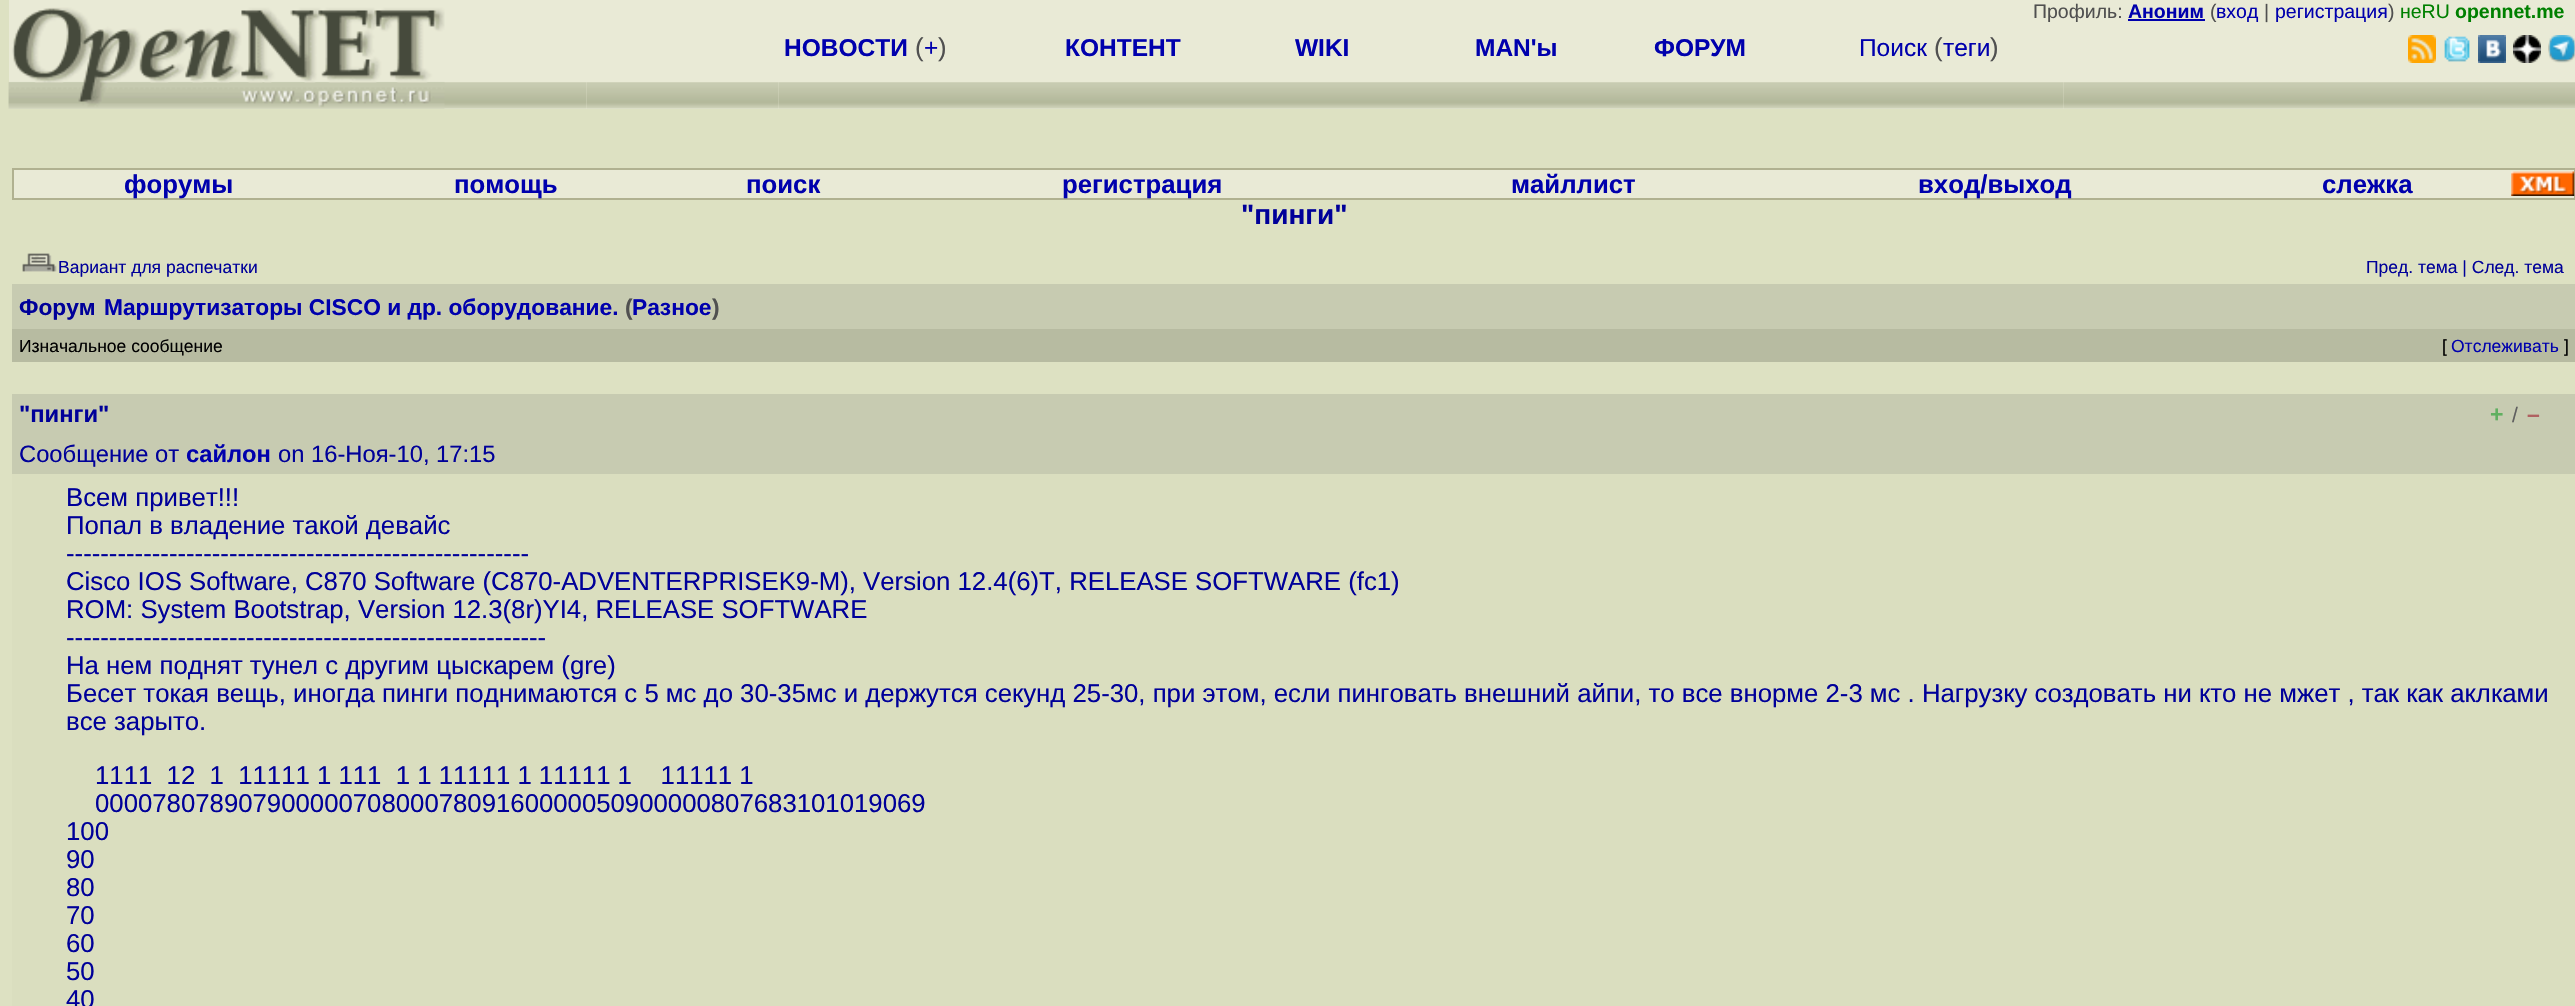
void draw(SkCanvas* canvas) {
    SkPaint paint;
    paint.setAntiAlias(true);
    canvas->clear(0xFFDDE1C2);
    paint.setColor(0xFFE9EAD6);
    canvas->drawRect(SkRect::MakeXYWH(9, 0, 2566, 4), paint);
    canvas->drawRect(SkRect::MakeXYWH(9, 4, 2566, 105), paint);
    SkFont font1(fontMgr->matchFamilyStyle("Liberation Sans", SkFontStyle::Normal()), 19.5f);
    font1.setSubpixel(true);
    paint.setColor(0xFF505050);
    canvas->drawString("Профиль:", 2033, 18, font1, paint);
    SkFont font2(fontMgr->matchFamilyStyle("Liberation Sans", SkFontStyle::Bold()), 19.5f);
    font2.setSubpixel(true);
    paint.setColor(0xFF0000AD);
    canvas->drawString("Аноним", 2128, 18, font2, paint);
    canvas->drawRect(SkRect::MakeXYWH(2128, 19, 77, 2), paint);
    paint.setColor(0xFF505050);
    canvas->drawString("(", 2210, 18, font1, paint);
    paint.setColor(0xFF0000AD);
    canvas->drawString("вход", 2216, 18, font1, paint);
    paint.setColor(0xFF505050);
    canvas->drawString("|", 2264, 18, font1, paint);
    paint.setColor(0xFF0000AD);
    canvas->drawString("регистрация", 2275, 18, font1, paint);
    paint.setColor(0xFF505050);
    canvas->drawString(")", 2388, 18, font1, paint);
    paint.setColor(0xFF008000);
    canvas->drawString("неRU", 2400, 18, font1, paint);
    canvas->drawString("opennet.me", 2455, 18, font2, paint);
    canvas->drawImageRect(SkImages::DeferredFromEncodedData(SkData::MakeFromFileName("img1.png")), SkRect::MakeXYWH(8, 82, 578, 27), SkSamplingOptions());
    canvas->drawImageRect(SkImages::DeferredFromEncodedData(SkData::MakeFromFileName("img2.png")), SkRect::MakeXYWH(8, 7, 437, 102), SkSamplingOptions());
    canvas->drawImageRect(SkImages::DeferredFromEncodedData(SkData::MakeFromFileName("img3.png")), SkRect::MakeXYWH(779, 82, 1284, 27), SkSamplingOptions());
    SkFont font3(fontMgr->matchFamilyStyle("Liberation Sans", SkFontStyle::Bold()), 24.5f);
    font3.setSubpixel(true);
    paint.setColor(0xFF0000AD);
    canvas->drawString("НОВОСТИ", 784, 56, font3, paint);
    SkFont font4(fontMgr->matchFamilyStyle("Liberation Sans", SkFontStyle::Normal()), 25.75f);
    font4.setSubpixel(true);
    paint.setColor(0xFF505050);
    canvas->drawString("(", 915, 56, font4, paint);
    SkFont font5(fontMgr->matchFamilyStyle("Liberation Sans", SkFontStyle::Normal()), 24.5f);
    font5.setSubpixel(true);
    paint.setColor(0xFF0000AD);
    canvas->drawString("+", 924, 56, font5, paint);
    paint.setColor(0xFF505050);
    canvas->drawString(")", 938, 56, font4, paint);
    paint.setColor(0xFF0000AD);
    canvas->drawString("КОНТЕНТ", 1065, 56, font3, paint);
    canvas->drawString("WIKI", 1295, 56, font3, paint);
    canvas->drawString("MAN'ы", 1475, 56, font3, paint);
    canvas->drawString("ФОРУМ", 1654, 56, font3, paint);
    canvas->drawString("Поиск", 1859, 56, font5, paint);
    paint.setColor(0xFF505050);
    canvas->drawString("(", 1934, 56, font4, paint);
    paint.setColor(0xFF0000AD);
    canvas->drawString("теги", 1943, 56, font5, paint);
    paint.setColor(0xFF505050);
    canvas->drawString(")", 1990, 56, font4, paint);
    canvas->drawImageRect(SkImages::DeferredFromEncodedData(SkData::MakeFromFileName("img4.png")), SkRect::MakeXYWH(2063, 82, 512, 27), SkSamplingOptions());
    canvas->drawImageRect(SkImages::DeferredFromEncodedData(SkData::MakeFromFileName("img5.png")), SkRect::MakeXYWH(2408, 35, 28, 28), SkSamplingOptions());
    canvas->drawImageRect(SkImages::DeferredFromEncodedData(SkData::MakeFromFileName("img6.png")), SkRect::MakeXYWH(2444, 36, 26, 26), SkSamplingOptions());
    canvas->drawImageRect(SkImages::DeferredFromEncodedData(SkData::MakeFromFileName("img7.png")), SkRect::MakeXYWH(2478, 35, 28, 28), SkSamplingOptions());
    canvas->drawImageRect(SkImages::DeferredFromEncodedData(SkData::MakeFromFileName("img8.png")), SkRect::MakeXYWH(2513, 35, 28, 28), SkSamplingOptions());
    canvas->drawImageRect(SkImages::DeferredFromEncodedData(SkData::MakeFromFileName("img9.png")), SkRect::MakeXYWH(2548, 35, 27, 28), SkSamplingOptions());
    canvas->drawImageRect(SkImages::DeferredFromEncodedData(SkData::MakeFromFileName("img10.png")), SkRect::MakeXYWH(586, 82, 193, 27), SkSamplingOptions());
    paint.setColor(0xFFB0B190);
    canvas->drawRect(SkRect::MakeXYWH(12, 168, 2563, 32), paint);
    paint.setColor(0xFFE9EAD6);
    canvas->drawRect(SkRect::MakeXYWH(14, 170, 2560, 28), paint);
    SkFont font6(fontMgr->matchFamilyStyle("Liberation Sans", SkFontStyle::Bold()), 25.75f);
    font6.setSubpixel(true);
    paint.setColor(0xFF0000AD);
    canvas->drawString("форумы", 124, 193, font6, paint);
    canvas->drawString("помощь", 454, 193, font6, paint);
    canvas->drawString("поиск", 746, 193, font6, paint);
    canvas->drawString("регистрация", 1062, 193, font6, paint);
    canvas->drawString("майллист", 1511, 193, font6, paint);
    canvas->drawString("вход/выход", 1918, 193, font6, paint);
    canvas->drawString("слежка", 2322, 193, font6, paint);
    canvas->drawImageRect(SkImages::DeferredFromEncodedData(SkData::MakeFromFileName("img11.png")), SkRect::MakeXYWH(2511, 171, 64, 25), SkSamplingOptions());
    SkFont font7(fontMgr->matchFamilyStyle("Liberation Sans", SkFontStyle::Bold()), 28);
    font7.setSubpixel(true);
    paint.setColor(0xFF000099);
    canvas->drawString("\"пинги\"", 1241, 224, font7, paint);
    canvas->drawImageRect(SkImages::DeferredFromEncodedData(SkData::MakeFromFileName("img12.png")), SkRect::MakeXYWH(22, 253, 35, 19), SkSamplingOptions());
    SkFont font8(fontMgr->matchFamilyStyle("Liberation Sans", SkFontStyle::Normal()), 17.5f);
    font8.setSubpixel(true);
    canvas->drawString("Вариант для распечатки", 58, 273, font8, paint);
    canvas->drawString("Пред. тема | След. тема", 2366, 273, font8, paint);
    paint.setColor(0xFFC7CBB1);
    canvas->drawRect(SkRect::MakeXYWH(12, 284, 2563, 45), paint);
    SkFont font9(fontMgr->matchFamilyStyle("Liberation Sans", SkFontStyle::Bold()), 22.75f);
    font9.setSubpixel(true);
    paint.setColor(0xFF000099);
    canvas->drawString("Форум", 19, 315, font9, paint);
    paint.setColor(0xFF0000AD);
    canvas->drawString("Маршрутизаторы CISCO и др. оборудование.", 104, 315, font9, paint);
    paint.setColor(0xFF505050);
    canvas->drawString("(", 625, 315, font9, paint);
    paint.setColor(0xFF0000AD);
    canvas->drawString("Разное", 632, 315, font9, paint);
    paint.setColor(0xFF505050);
    canvas->drawString(")", 712, 315, font9, paint);
    paint.setColor(0xFFB7BBA1);
    canvas->drawRect(SkRect::MakeXYWH(12, 329, 2563, 33), paint);
    paint.setColor(0xFF000000);
    canvas->drawString("Изначальное сообщение", 19, 352, font8, paint);
    canvas->drawString("[", 2442, 352, font8, paint);
    paint.setColor(0xFF0000AD);
    canvas->drawString("Отслеживать", 2451, 352, font8, paint);
    paint.setColor(0xFF000000);
    canvas->drawString("]", 2564, 352, font8, paint);
    paint.setColor(0xFFC7CBB1);
    canvas->drawRect(SkRect::MakeXYWH(12, 394, 2538, 80), paint);
    SkFont font10(fontMgr->matchFamilyStyle("Liberation Sans", SkFontStyle::Bold()), 23.75f);
    font10.setSubpixel(true);
    paint.setColor(0xFF000099);
    canvas->drawString("\"пинги\"", 19, 422, font10, paint);
    SkFont font11(fontMgr->matchFamilyStyle("Liberation Sans", SkFontStyle::Bold()), 23);
    font11.setSubpixel(true);
    paint.setColor(0xFF60B060);
    canvas->drawString("+", 2490, 422, font11, paint);
    SkFont font12(fontMgr->matchFamilyStyle("Liberation Sans", SkFontStyle::Normal()), 21);
    font12.setSubpixel(true);
    paint.setColor(0xFF606060);
    canvas->drawString("/", 2512, 422, font12, paint);
    paint.setColor(0xFFB06060);
    canvas->drawString("–", 2527, 422, font11, paint);
    paint.setColor(0xFFC7CBB1);
    canvas->drawRect(SkRect::MakeXYWH(2550, 394, 25, 80), paint);
    SkFont font13(fontMgr->matchFamilyStyle("Liberation Sans", SkFontStyle::Normal()), 23.75f);
    font13.setSubpixel(true);
    paint.setColor(0xFF000099);
    canvas->drawString("Сообщение от", 19, 462, font13, paint);
    paint.setColor(0xFF0000AD);
    canvas->drawString("сайлон", 186, 462, font10, paint);
    paint.setColor(0xFF000099);
    canvas->drawString("on 16-Ноя-10, 17:15", 278, 462, font13, paint);
    paint.setColor(0xFFDADEBF);
    canvas->drawRect(SkRect::MakeXYWH(12, 474, 2563, 532), paint);
    paint.setColor(0xFF000099);
    canvas->drawString("Всем привет!!!", 66, 506, font4, paint);
    canvas->drawString("Попал в владение такой девайс", 66, 534, font4, paint);
    canvas->drawString("------------------------------------------------------", 66, 562, font4, paint);
    canvas->drawString("Cisco IOS Software, C870 Software (C870-ADVENTERPRISEK9-M), Version 12.4(6)T, RELEASE SOFTWARE (fc1)", 66, 590, font4, paint);
    canvas->drawString("ROM: System Bootstrap, Version 12.3(8r)YI4, RELEASE SOFTWARE", 66, 618, font4, paint);
    canvas->drawString("--------------------------------------------------------", 66, 646, font4, paint);
    canvas->drawString("На нем поднят тунел с другим цыскарем (gre)", 66, 674, font4, paint);
    canvas->drawString("Бесет токая вещь, иногда пинги поднимаются с 5 мс до 30-35мс и держутся секунд 25-30, при этом, если пинговать внешний айпи, то все внорме 2-3 мс . Нагрузку создовать ни кто не мжет , так как аклками", 66, 702, font4, paint);
    canvas->drawString("все зарыто.", 66, 730, font4, paint);
    canvas->drawString("1111  12  1  11111 1 111  1 1 11111 1 11111 1    11111 1", 95, 784, font4, paint);
    canvas->drawString("0000780789079000007080007809160000050900000807683101019069", 95, 812, font4, paint);
    canvas->drawString("100", 66, 840, font4, paint);
    canvas->drawString("90", 66, 868, font4, paint);
    canvas->drawString("80", 66, 896, font4, paint);
    canvas->drawString("70", 66, 924, font4, paint);
    canvas->drawString("60", 66, 952, font4, paint);
    canvas->drawString("50", 66, 980, font4, paint);
    canvas->drawString("40", 66, 1008, font4, paint);
}
